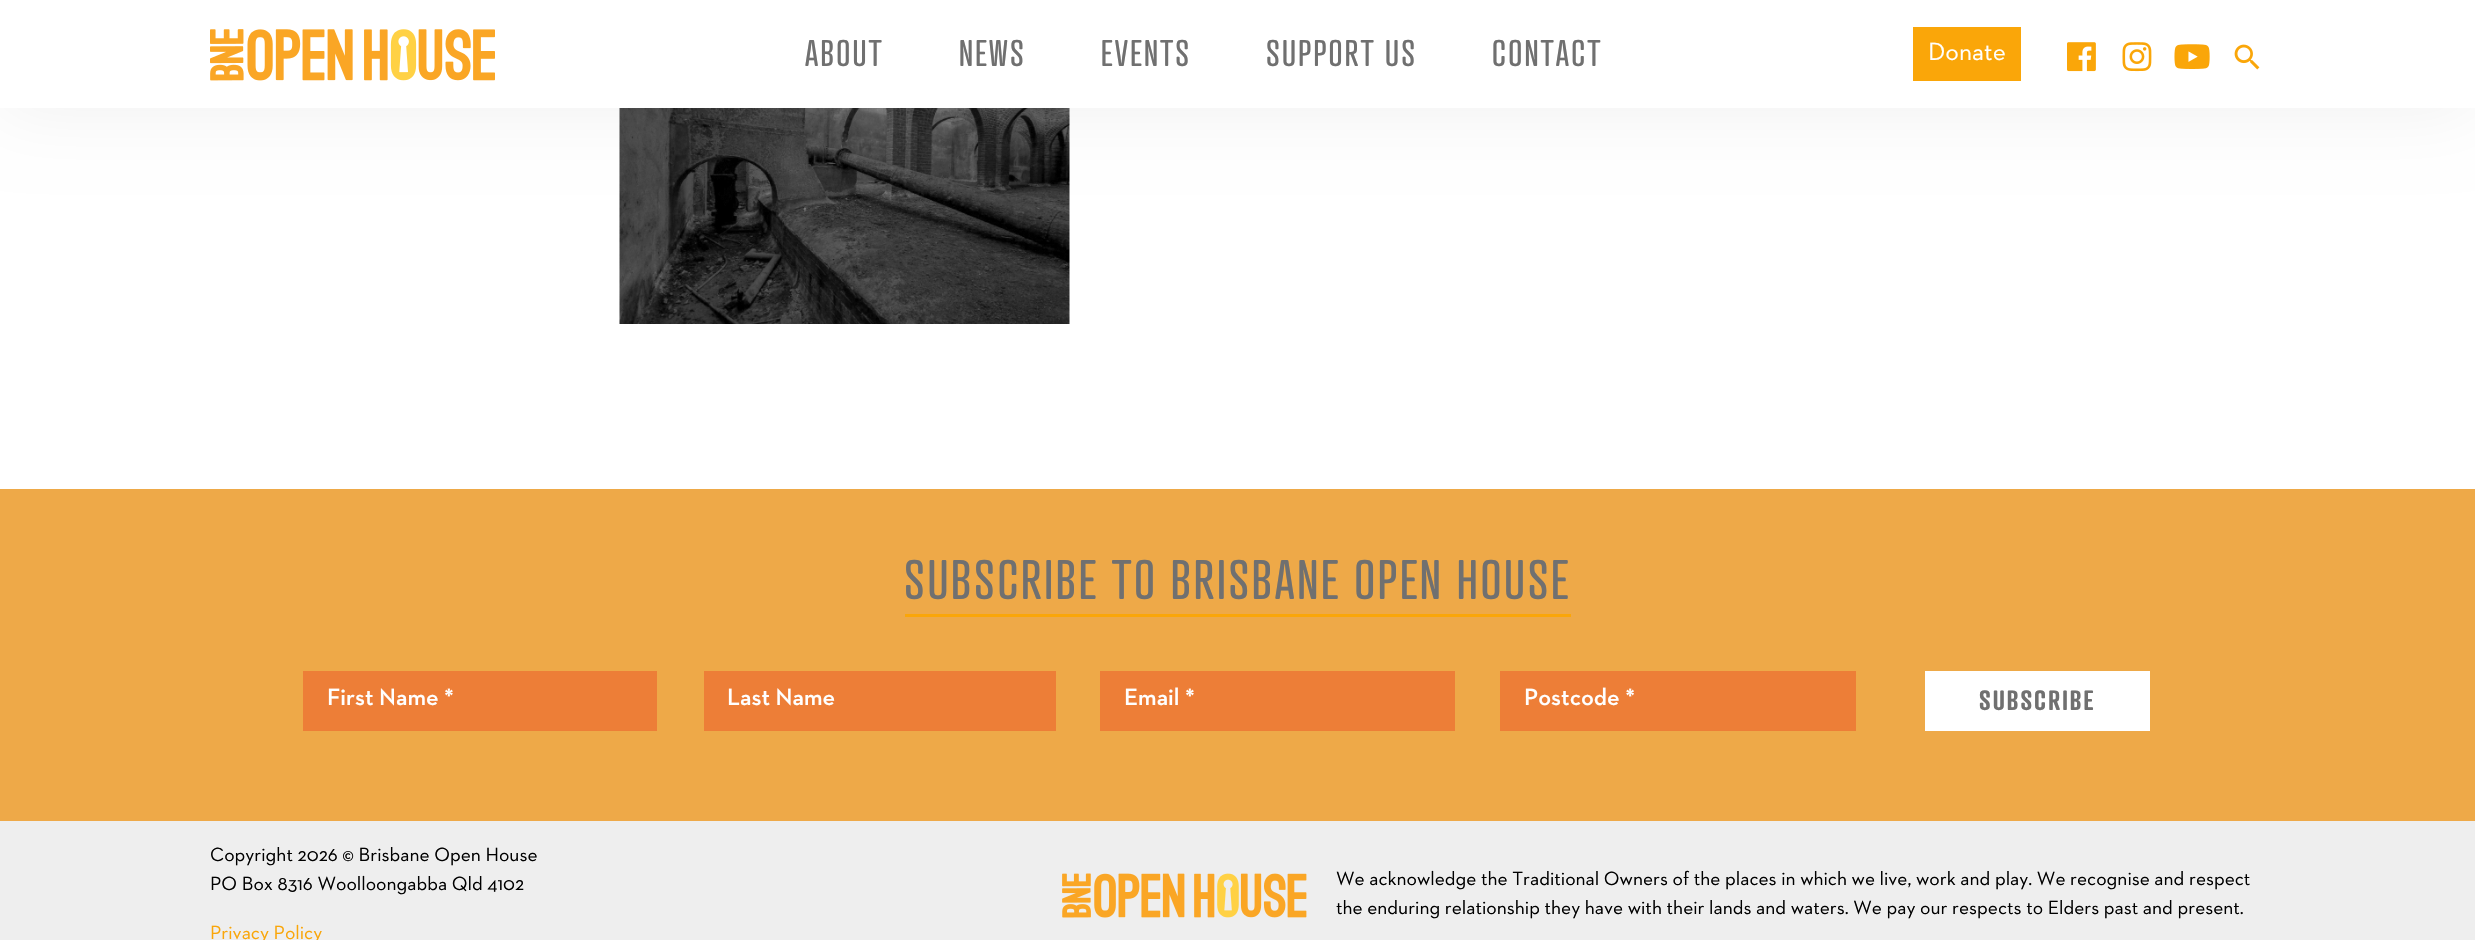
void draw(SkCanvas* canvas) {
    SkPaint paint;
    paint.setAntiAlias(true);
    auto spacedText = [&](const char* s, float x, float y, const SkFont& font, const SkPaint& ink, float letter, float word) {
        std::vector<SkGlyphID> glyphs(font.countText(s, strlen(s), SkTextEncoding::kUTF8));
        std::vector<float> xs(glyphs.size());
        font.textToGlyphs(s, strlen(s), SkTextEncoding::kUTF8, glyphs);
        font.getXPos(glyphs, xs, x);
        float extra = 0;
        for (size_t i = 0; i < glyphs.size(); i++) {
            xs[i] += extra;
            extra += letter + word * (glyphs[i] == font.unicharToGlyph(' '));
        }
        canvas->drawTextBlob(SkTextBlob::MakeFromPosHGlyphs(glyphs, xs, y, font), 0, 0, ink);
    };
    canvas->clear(0xFFFFFFFF);
    canvas->drawImageRect(SkImages::DeferredFromEncodedData(SkData::MakeFromFileName("img6.png")), SkRect::MakeXYWH(619, 108, 451, 216), SkSamplingOptions());
    paint.setColor(0x0F000000);
    paint.setMaskFilter(SkMaskFilter::MakeBlur(kNormal_SkBlurStyle, 36));
    canvas->drawRect(SkRect::MakeXYWH(0, 0, 2475, 108), paint);
    paint.setMaskFilter(nullptr);
    paint.setColor(0xFFFFFFFF);
    canvas->drawRect(SkRect::MakeXYWH(0, 0, 2475, 108), paint);
    canvas->drawImageRect(SkImages::DeferredFromEncodedData(SkData::MakeFromFileName("img1.png")), SkRect::MakeXYWH(210, 29, 285, 52), SkSamplingOptions());
    SkFont font1(fontMgr->matchFamilyStyle("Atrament", SkFontStyle::Normal()), 36);
    font1.setSubpixel(true);
    paint.setColor(0xFF707070);
    spacedText("ABOUT", 805, 66, font1, paint, 2.25f, 0);
    spacedText("NEWS", 959, 66, font1, paint, 2.25f, 0);
    spacedText("EVENTS", 1101, 66, font1, paint, 2.25f, 0);
    spacedText("SUPPORT US", 1266, 66, font1, paint, 2.25f, 0);
    spacedText("CONTACT", 1492, 66, font1, paint, 2.25f, 0);
    paint.setColor(0xFFFAA609);
    canvas->drawRect(SkRect::MakeXYWH(1913, 27, 108, 54), paint);
    SkFont font2(fontMgr->matchFamilyStyle("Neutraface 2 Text", SkFontStyle::Normal()), 25.5f);
    font2.setSubpixel(true);
    paint.setColor(0xFFFFFFFF);
    canvas->drawString("Donate", 1928, 60, font2, paint);
    canvas->drawImageRect(SkImages::DeferredFromEncodedData(SkData::MakeFromFileName("img2.png")), SkRect::MakeXYWH(2067, 42, 29, 30), SkSamplingOptions());
    canvas->drawImageRect(SkImages::DeferredFromEncodedData(SkData::MakeFromFileName("img3.png")), SkRect::MakeXYWH(2122, 42, 30, 30), SkSamplingOptions());
    canvas->drawImageRect(SkImages::DeferredFromEncodedData(SkData::MakeFromFileName("img4.png")), SkRect::MakeXYWH(2174, 44, 36, 25), SkSamplingOptions());
    canvas->drawImageRect(SkImages::DeferredFromEncodedData(SkData::MakeFromFileName("img5.png")), SkRect::MakeXYWH(2234, 44, 26, 26), SkSamplingOptions());
    paint.setColor(0xFFEEA948);
    canvas->drawRect(SkRect::MakeXYWH(0, 489, 2475, 332), paint);
    SkFont font3(fontMgr->matchFamilyStyle("Atrament", SkFontStyle::Normal()), 54);
    font3.setSubpixel(true);
    paint.setColor(0xFF707070);
    spacedText("SUBSCRIBE TO BRISBANE OPEN HOUSE", 904, 599, font3, paint, 2.7f, 0);
    paint.setColor(0xFFFAA609);
    canvas->drawRect(SkRect::MakeXYWH(905, 614, 666, 3), paint);
    paint.setColor(0xFFED7E37);
    canvas->drawRect(SkRect::MakeXYWH(303, 671, 354, 60), paint);
    SkFont font4(fontMgr->matchFamilyStyle("Neutraface 2 Text", SkFontStyle(600, SkFontStyle::kNormal_Width, SkFontStyle::kUpright_Slant)), 24);
    font4.setSubpixel(true);
    paint.setColor(0xFFFFFFFF);
    canvas->drawString("First Name *", 327, 705, font4, paint);
    paint.setColor(0xFFED7E37);
    canvas->drawRect(SkRect::MakeXYWH(704, 671, 352, 60), paint);
    paint.setColor(0xFFFFFFFF);
    canvas->drawString("Last Name", 727, 705, font4, paint);
    paint.setColor(0xFFED7E37);
    canvas->drawRect(SkRect::MakeXYWH(1100, 671, 355, 60), paint);
    paint.setColor(0xFFFFFFFF);
    canvas->drawString("Email *", 1124, 705, font4, paint);
    paint.setColor(0xFFED7E37);
    canvas->drawRect(SkRect::MakeXYWH(1500, 671, 356, 60), paint);
    paint.setColor(0xFFFFFFFF);
    canvas->drawString("Postcode *", 1524, 705, font4, paint);
    canvas->drawRect(SkRect::MakeXYWH(1925, 671, 225, 60), paint);
    SkFont font5(fontMgr->matchFamilyStyle("Atrament", SkFontStyle(600, SkFontStyle::kNormal_Width, SkFontStyle::kUpright_Slant)), 27);
    font5.setSubpixel(true);
    paint.setColor(0xFF707070);
    spacedText("SUBSCRIBE", 1979, 710, font5, paint, 2, 0);
    paint.setColor(0xFFEEEEEE);
    canvas->drawRect(SkRect::MakeXYWH(0, 821, 2475, 119), paint);
    SkFont font6(fontMgr->matchFamilyStyle("Neutraface 2 Text", SkFontStyle::Normal()), 19.5f);
    font6.setSubpixel(true);
    paint.setColor(0xFF000000);
    canvas->drawString("Copyright 2026 © Brisbane Open House", 210, 861, font6, paint);
    canvas->drawString("PO Box 8316 Woolloongabba Qld 4102", 210, 890, font6, paint);
    paint.setColor(0xFFFAA609);
    canvas->drawString("Privacy Policy", 210, 939, font6, paint);
    canvas->drawImageRect(SkImages::DeferredFromEncodedData(SkData::MakeFromFileName("img7.png")), SkRect::MakeXYWH(1062, 873, 245, 45), SkSamplingOptions());
    paint.setColor(0xFF000000);
    canvas->drawString("We acknowledge the Traditional Owners of the places in which we live, work and play. We recognise and respect", 1336, 885, font6, paint);
    canvas->drawString("the enduring relationship they have with their lands and waters. We pay our respects to Elders past and present.", 1336, 914, font6, paint);
}
